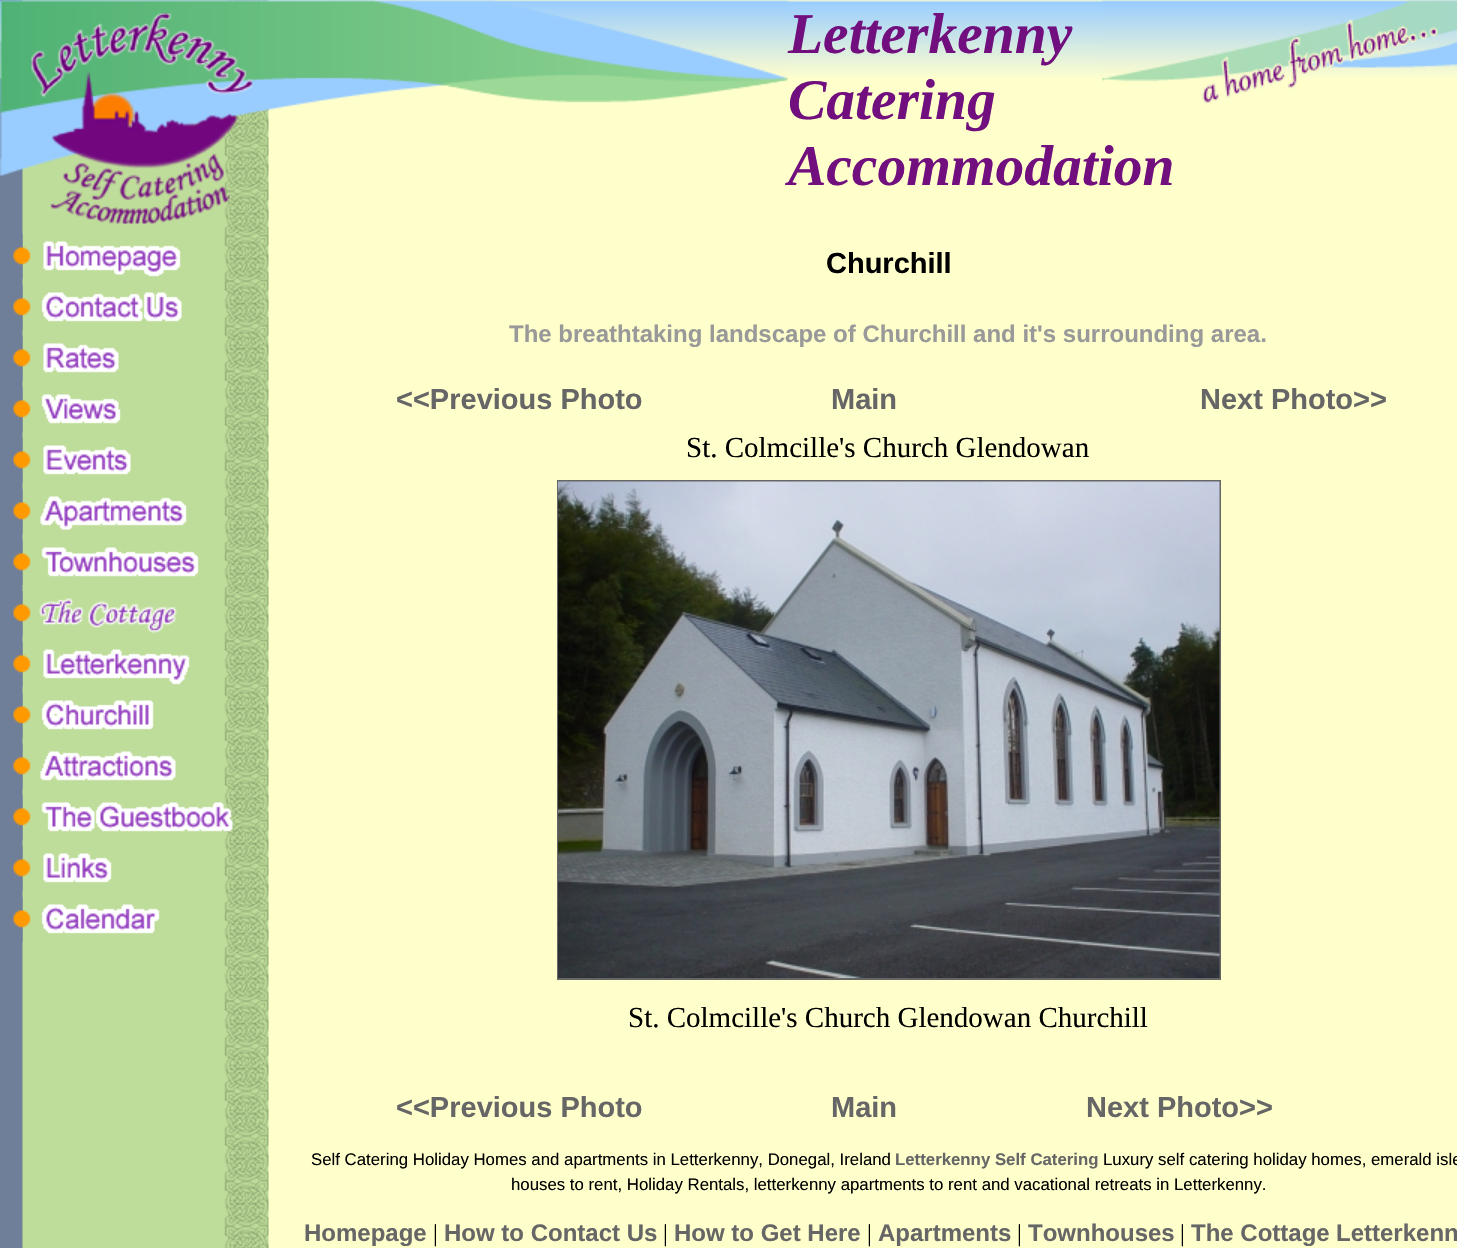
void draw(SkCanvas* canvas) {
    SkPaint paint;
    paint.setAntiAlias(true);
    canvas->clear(0xFFFFFFCC);
    canvas->drawImageRect(SkImages::DeferredFromEncodedData(SkData::MakeFromFileName("img1.png")), SkRect::MakeXYWH(0, 0, 269, 1248), SkSamplingOptions());
    canvas->drawImageRect(SkImages::DeferredFromEncodedData(SkData::MakeFromFileName("img17.png")), SkRect::MakeXYWH(0, 0, 1457, 80), SkSamplingOptions());
    canvas->drawImageRect(SkImages::DeferredFromEncodedData(SkData::MakeFromFileName("img18.png")), SkRect::MakeXYWH(0, 0, 788, 176), SkSamplingOptions());
    canvas->drawImageRect(SkImages::DeferredFromEncodedData(SkData::MakeFromFileName("img2.png")), SkRect::MakeXYWH(31, 13, 222, 211), SkSamplingOptions());
    canvas->drawImageRect(SkImages::DeferredFromEncodedData(SkData::MakeFromFileName("img3.png")), SkRect::MakeXYWH(13, 234, 168, 45), SkSamplingOptions());
    canvas->drawImageRect(SkImages::DeferredFromEncodedData(SkData::MakeFromFileName("img4.png")), SkRect::MakeXYWH(13, 285, 169, 45), SkSamplingOptions());
    canvas->drawImageRect(SkImages::DeferredFromEncodedData(SkData::MakeFromFileName("img5.png")), SkRect::MakeXYWH(13, 336, 106, 45), SkSamplingOptions());
    canvas->drawImageRect(SkImages::DeferredFromEncodedData(SkData::MakeFromFileName("img6.png")), SkRect::MakeXYWH(13, 387, 108, 45), SkSamplingOptions());
    canvas->drawImageRect(SkImages::DeferredFromEncodedData(SkData::MakeFromFileName("img7.png")), SkRect::MakeXYWH(13, 438, 118, 45), SkSamplingOptions());
    canvas->drawImageRect(SkImages::DeferredFromEncodedData(SkData::MakeFromFileName("img8.png")), SkRect::MakeXYWH(13, 489, 174, 45), SkSamplingOptions());
    canvas->drawImageRect(SkImages::DeferredFromEncodedData(SkData::MakeFromFileName("img9.png")), SkRect::MakeXYWH(13, 540, 186, 45), SkSamplingOptions());
    canvas->drawImageRect(SkImages::DeferredFromEncodedData(SkData::MakeFromFileName("img10.png")), SkRect::MakeXYWH(13, 591, 165, 45), SkSamplingOptions());
    canvas->drawImageRect(SkImages::DeferredFromEncodedData(SkData::MakeFromFileName("img11.png")), SkRect::MakeXYWH(13, 642, 177, 45), SkSamplingOptions());
    canvas->drawImageRect(SkImages::DeferredFromEncodedData(SkData::MakeFromFileName("img12.png")), SkRect::MakeXYWH(13, 693, 141, 45), SkSamplingOptions());
    canvas->drawImageRect(SkImages::DeferredFromEncodedData(SkData::MakeFromFileName("img13.png")), SkRect::MakeXYWH(13, 744, 163, 45), SkSamplingOptions());
    canvas->drawImageRect(SkImages::DeferredFromEncodedData(SkData::MakeFromFileName("img14.png")), SkRect::MakeXYWH(13, 795, 220, 45), SkSamplingOptions());
    canvas->drawImageRect(SkImages::DeferredFromEncodedData(SkData::MakeFromFileName("img15.png")), SkRect::MakeXYWH(13, 846, 99, 45), SkSamplingOptions());
    canvas->drawImageRect(SkImages::DeferredFromEncodedData(SkData::MakeFromFileName("img16.png")), SkRect::MakeXYWH(13, 897, 147, 45), SkSamplingOptions());
    SkFont font1(fontMgr->matchFamilyStyle("Liberation Serif", SkFontStyle::BoldItalic()), 57.5f);
    font1.setSubpixel(true);
    paint.setColor(0xFF710F7E);
    canvas->drawString("Letterkenny", 788, 53, font1, paint);
    canvas->drawString("Catering", 788, 119, font1, paint);
    canvas->drawString("Accommodation", 788, 185, font1, paint);
    canvas->drawImageRect(SkImages::DeferredFromEncodedData(SkData::MakeFromFileName("img19.png")), SkRect::MakeXYWH(1102, 0, 355, 104), SkSamplingOptions());
    SkFont font2(fontMgr->matchFamilyStyle("Liberation Sans", SkFontStyle::Bold()), 29);
    font2.setSubpixel(true);
    paint.setColor(0xFF000000);
    canvas->drawString("Churchill", 826, 273, font2, paint);
    SkFont font3(fontMgr->matchFamilyStyle("Liberation Sans", SkFontStyle::Bold()), 24);
    font3.setSubpixel(true);
    paint.setColor(0xFF999999);
    canvas->drawString("The breathtaking landscape of Churchill and it's surrounding area.", 509, 342, font3, paint);
    paint.setColor(0xFF666666);
    canvas->drawString("<<Previous Photo", 396, 409, font2, paint);
    canvas->drawString("Main", 831, 409, font2, paint);
    canvas->drawString("Next Photo>>", 1200, 409, font2, paint);
    SkFont font4(fontMgr->matchFamilyStyle("Liberation Serif", SkFontStyle::Normal()), 29);
    font4.setSubpixel(true);
    paint.setColor(0xFF000000);
    canvas->drawString("St. Colmcille's Church Glendowan", 686, 457, font4, paint);
    paint.setStyle(SkPaint::kStroke_Style);
    paint.setStrokeWidth(2);
    paint.setColor(0xFF666666);
    canvas->drawRect(SkRect::MakeXYWH(558, 481, 662, 498), paint);
    canvas->drawImageRect(SkImages::DeferredFromEncodedData(SkData::MakeFromFileName("img20.png")), SkRect::MakeXYWH(558, 481, 662, 497), SkSamplingOptions());
    paint.setStyle(SkPaint::kFill_Style);
    paint.setColor(0xFF000000);
    canvas->drawString("St. Colmcille's Church Glendowan Churchill", 628, 1027, font4, paint);
    paint.setColor(0xFF666666);
    canvas->drawString("<<Previous Photo", 396, 1117, font2, paint);
    canvas->drawString("Main", 831, 1117, font2, paint);
    canvas->drawString("Next Photo>>", 1086, 1117, font2, paint);
    SkFont font5(fontMgr->matchFamilyStyle("Liberation Sans", SkFontStyle::Normal()), 16.8f);
    font5.setSubpixel(true);
    paint.setColor(0xFF000000);
    canvas->drawString("Self Catering Holiday Homes and apartments in Letterkenny, Donegal, Ireland", 311, 1165, font5, paint);
    SkFont font6(fontMgr->matchFamilyStyle("Liberation Sans", SkFontStyle::Bold()), 16.8f);
    font6.setSubpixel(true);
    paint.setColor(0xFF666666);
    canvas->drawString("Letterkenny Self Catering", 895, 1165, font6, paint);
    paint.setColor(0xFF000000);
    canvas->drawString("Luxury self catering holiday homes, emerald isle", 1103, 1165, font5, paint);
    canvas->drawString("houses to rent, Holiday Rentals, letterkenny apartments to rent and vacational retreats in Letterkenny.", 511, 1190, font5, paint);
    paint.setColor(0xFF666666);
    canvas->drawString("Homepage", 304, 1241, font3, paint);
    SkFont font7(fontMgr->matchFamilyStyle("Liberation Serif", SkFontStyle::Normal()), 24);
    font7.setSubpixel(true);
    paint.setColor(0xFF000000);
    canvas->drawString("|", 433, 1241, font7, paint);
    paint.setColor(0xFF666666);
    canvas->drawString("How to Contact Us", 444, 1241, font3, paint);
    paint.setColor(0xFF000000);
    canvas->drawString("|", 663, 1241, font7, paint);
    paint.setColor(0xFF666666);
    canvas->drawString("How to Get Here", 674, 1241, font3, paint);
    paint.setColor(0xFF000000);
    canvas->drawString("|", 867, 1241, font7, paint);
    paint.setColor(0xFF666666);
    canvas->drawString("Apartments", 878, 1241, font3, paint);
    paint.setColor(0xFF000000);
    canvas->drawString("|", 1017, 1241, font7, paint);
    paint.setColor(0xFF666666);
    canvas->drawString("Townhouses", 1028, 1241, font3, paint);
    paint.setColor(0xFF000000);
    canvas->drawString("|", 1180, 1241, font7, paint);
    paint.setColor(0xFF666666);
    canvas->drawString("The Cottage", 1191, 1241, font3, paint);
    canvas->drawString("Letterkenn", 1336, 1241, font3, paint);
}
